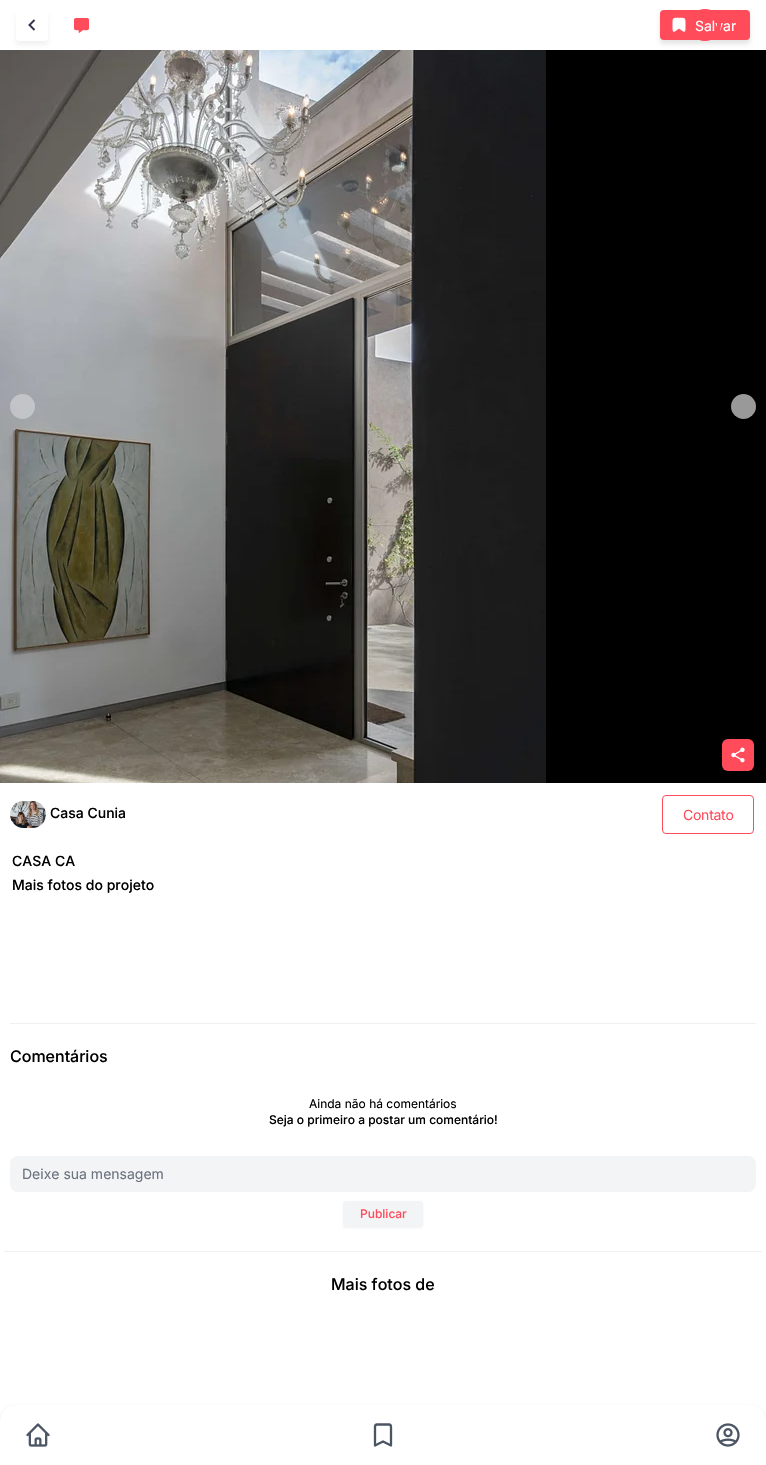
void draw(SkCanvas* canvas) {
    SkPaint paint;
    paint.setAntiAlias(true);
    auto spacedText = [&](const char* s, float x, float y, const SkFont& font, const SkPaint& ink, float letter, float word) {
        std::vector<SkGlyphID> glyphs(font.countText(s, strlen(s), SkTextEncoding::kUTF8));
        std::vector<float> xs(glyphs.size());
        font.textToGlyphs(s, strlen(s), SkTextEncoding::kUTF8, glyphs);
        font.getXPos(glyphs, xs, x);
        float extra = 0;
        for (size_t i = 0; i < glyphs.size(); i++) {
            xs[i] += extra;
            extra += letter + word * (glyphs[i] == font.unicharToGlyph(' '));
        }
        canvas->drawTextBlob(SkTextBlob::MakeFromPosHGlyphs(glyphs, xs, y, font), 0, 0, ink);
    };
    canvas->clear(0xFFFFFFFF);
    paint.setColor(0x0D000000);
    paint.setMaskFilter(SkMaskFilter::MakeBlur(kNormal_SkBlurStyle, 2));
    canvas->drawRoundRect(SkRect::MakeXYWH(16, 13, 32, 32), 4, 4, paint);
    paint.setMaskFilter(nullptr);
    paint.setColor(0xFFFFFFFF);
    canvas->drawRoundRect(SkRect::MakeXYWH(16, 9, 32, 32), 4, 4, paint);
    canvas->drawImageRect(SkImages::DeferredFromEncodedData(SkData::MakeFromFileName("img1.png")), SkRect::MakeXYWH(28, 19, 8, 12), SkSamplingOptions());
    canvas->drawImageRect(SkImages::DeferredFromEncodedData(SkData::MakeFromFileName("img2.png")), SkRect::MakeXYWH(74, 18, 15, 15), SkSamplingOptions());
    paint.setColor(0x1A000000);
    paint.setMaskFilter(SkMaskFilter::MakeBlur(kNormal_SkBlurStyle, 2));
    canvas->drawRoundRect(SkRect::MakeXYWH(660, 14, 90, 30), 4, 4, paint);
    paint.setMaskFilter(nullptr);
    paint.setColor(0xFFFF4B5A);
    canvas->drawRoundRect(SkRect::MakeXYWH(660, 10, 90, 30), 4, 4, paint);
    canvas->drawImageRect(SkImages::DeferredFromEncodedData(SkData::MakeFromFileName("img3.png")), SkRect::MakeXYWH(672, 17, 14, 15), SkSamplingOptions());
    SkFont font1(fontMgr->matchFamilyStyle("Inter", SkFontStyle::Normal()), 14);
    font1.setSubpixel(true);
    paint.setColor(0xFFFFFFFF);
    canvas->drawString("Salvar", 695, 31, font1, paint);
    paint.setStyle(SkPaint::kStroke_Style);
    paint.setStrokeWidth(4);
    paint.setColor(0xFFFF4B5A);
    canvas->drawCircle(705, 25, 14, paint);
    paint.setStyle(SkPaint::kFill_Style);
    paint.setColor(0xFF000000);
    canvas->drawRect(SkRect::MakeXYWH(546, 50, 220, 733), paint);
    canvas->drawImageRect(SkImages::DeferredFromEncodedData(SkData::MakeFromFileName("img4.png")), SkRect::MakeXYWH(0, 50, 546, 733), SkSamplingOptions());
    paint.setColor(0x59FFFFFF);
    canvas->drawCircle(22.5f, 406.5f, 12.5f, paint);
    paint.setColor(0xFF999999);
    canvas->drawCircle(743.5f, 406.5f, 12.5f, paint);
    paint.setColor(0xFFFF4B5A);
    canvas->drawRoundRect(SkRect::MakeXYWH(722, 739, 32, 32), 6, 6, paint);
    canvas->drawImageRect(SkImages::DeferredFromEncodedData(SkData::MakeFromFileName("img5.png")), SkRect::MakeXYWH(731, 747, 14, 16), SkSamplingOptions());
    canvas->drawImageRect(SkImages::DeferredFromEncodedData(SkData::MakeFromFileName("img6.png")), SkRect::MakeXYWH(10, 801, 36, 27), SkSamplingOptions());
    SkFont font2(fontMgr->matchFamilyStyle("Inter", SkFontStyle(500, SkFontStyle::kNormal_Width, SkFontStyle::kUpright_Slant)), 14);
    font2.setSubpixel(true);
    paint.setColor(0xFF000000);
    canvas->drawString("Casa Cunia", 50, 818, font2, paint);
    paint.setStyle(SkPaint::kStroke_Style);
    paint.setStrokeWidth(1);
    paint.setColor(0xFFFF4B5A);
    canvas->drawRoundRect(SkRect::MakeXYWH(662.5f, 795.5f, 91, 38), 3.5f, 3.5f, paint);
    paint.setStyle(SkPaint::kFill_Style);
    spacedText("Contato", 683, 820, font1, paint, -0.25f, 0);
    paint.setColor(0xFF000000);
    canvas->drawString("CASA CA", 12, 866, font2, paint);
    canvas->drawString("Mais fotos do projeto", 12, 890, font2, paint);
    paint.setColor(0xFFEEF0F1);
    canvas->drawRect(SkRect::MakeXYWH(10, 1023, 746, 1), paint);
    SkFont font3(fontMgr->matchFamilyStyle("Inter", SkFontStyle(500, SkFontStyle::kNormal_Width, SkFontStyle::kUpright_Slant)), 16);
    font3.setSubpixel(true);
    paint.setColor(0xFF000000);
    canvas->drawString("Comentários", 10, 1062, font3, paint);
    SkFont font4(fontMgr->matchFamilyStyle("Inter", SkFontStyle::Normal()), 12);
    font4.setSubpixel(true);
    canvas->drawString("Ainda não há comentários", 309, 1108, font4, paint);
    SkFont font5(fontMgr->matchFamilyStyle("Inter", SkFontStyle(500, SkFontStyle::kNormal_Width, SkFontStyle::kUpright_Slant)), 12);
    font5.setSubpixel(true);
    canvas->drawString("Seja o primeiro a postar um comentário!", 269, 1124, font5, paint);
    paint.setColor(0xFFF3F4F6);
    canvas->drawRoundRect(SkRect::MakeXYWH(10, 1156, 746, 36), 8, 8, paint);
    paint.setColor(0xFF6B7280);
    canvas->drawString("Deixe sua mensagem", 22, 1179, font1, paint);
    paint.setColor(0x0D000000);
    paint.setMaskFilter(SkMaskFilter::MakeBlur(kNormal_SkBlurStyle, 1));
    canvas->drawRoundRect(SkRect::MakeXYWH(343, 1202, 80, 26), 4, 4, paint);
    paint.setMaskFilter(nullptr);
    paint.setColor(0xFFF3F4F6);
    canvas->drawRoundRect(SkRect::MakeXYWH(343, 1201, 80, 26), 4, 4, paint);
    paint.setColor(0xFFFF4B5A);
    canvas->drawString("Publicar", 360, 1218, font5, paint);
    paint.setColor(0xFFEEF0F1);
    canvas->drawRect(SkRect::MakeXYWH(4, 1251, 758, 1), paint);
    paint.setColor(0xFF000000);
    canvas->drawString("Mais fotos de", 331, 1290, font3, paint);
    paint.setColor(0x1A000000);
    paint.setMaskFilter(SkMaskFilter::MakeBlur(kNormal_SkBlurStyle, 1.5f));
    canvas->drawRoundRect(SkRect::MakeXYWH(0, 1406, 766, 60), 16, 16, paint);
    paint.setMaskFilter(nullptr);
    paint.setColor(0xFFFFFFFF);
    canvas->drawPath(SkPathBuilder().moveTo(16, 1405).lineTo(750, 1405).cubicTo(759, 1405, 766, 1412, 766, 1421).lineTo(766, 1465).lineTo(0, 1465).lineTo(0, 1421).cubicTo(0, 1412, 7, 1405, 16, 1405).close().detach(), paint);
    canvas->drawImageRect(SkImages::DeferredFromEncodedData(SkData::MakeFromFileName("img7.png")), SkRect::MakeXYWH(26, 1423, 24, 24), SkSamplingOptions());
    paint.setStyle(SkPaint::kStroke_Style);
    paint.setStrokeWidth(2.3f);
    paint.setStrokeCap(SkPaint::kRound_Cap);
    paint.setStrokeJoin(SkPaint::kRound_Join);
    paint.setColor(0xFF4B5563);
    canvas->drawPath(SkPathBuilder().moveTo(375, 1427).cubicTo(375, 1425.5f, 376, 1424.5f, 377, 1424.5f).lineTo(389, 1424.5f).cubicTo(390, 1424.5f, 391, 1425.5f, 391, 1427).lineTo(391, 1445.5f).lineTo(383, 1441.5f).lineTo(375, 1445.5f).close().detach(), paint);
    canvas->drawImageRect(SkImages::DeferredFromEncodedData(SkData::MakeFromFileName("img8.png")), SkRect::MakeXYWH(716, 1423, 24, 24), SkSamplingOptions());
}
